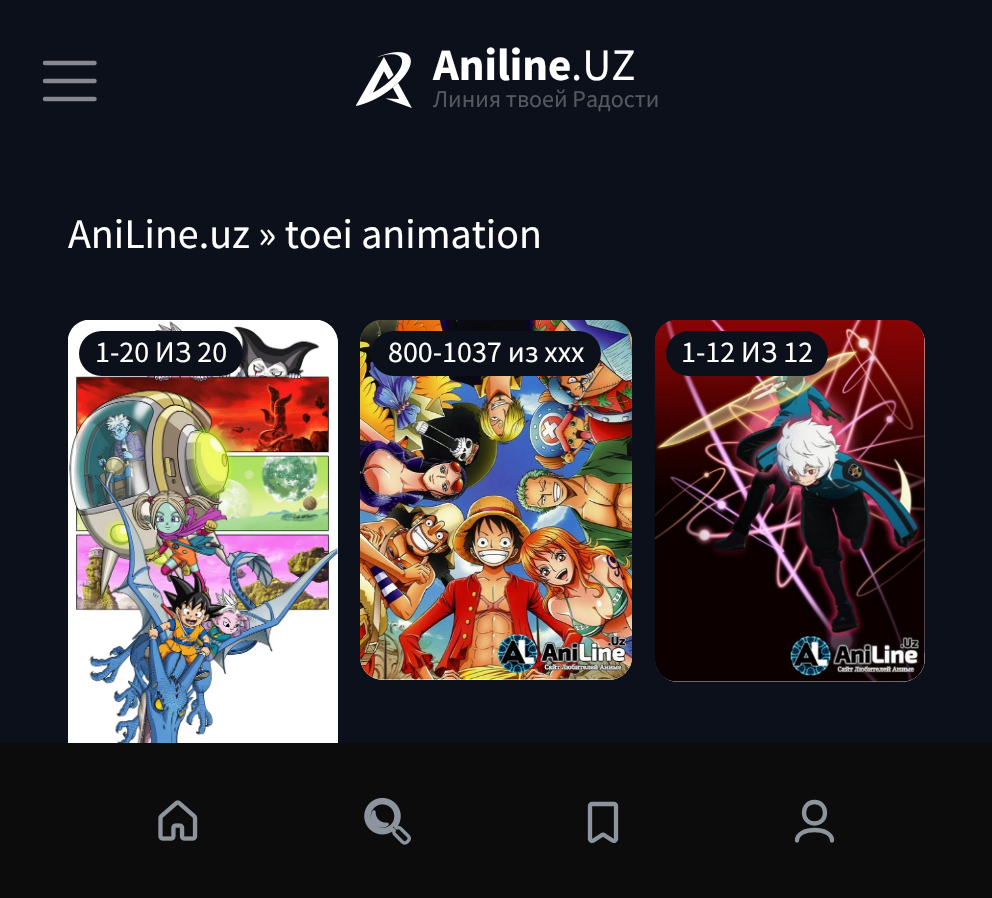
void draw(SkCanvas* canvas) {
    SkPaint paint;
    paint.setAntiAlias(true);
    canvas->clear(0xFF0C101B);
    paint.setStyle(SkPaint::kStroke_Style);
    paint.setStrokeWidth(4.5f);
    paint.setStrokeCap(SkPaint::kRound_Cap);
    paint.setColor(0xFF86888D);
    canvas->drawPath(SkPathBuilder().moveTo(45, 63).lineTo(94.5f, 63).moveTo(45, 81).lineTo(94.5f, 81).moveTo(45, 99).lineTo(94.5f, 99).detach(), paint);
    canvas->drawImageRect(SkImages::DeferredFromEncodedData(SkData::MakeFromFileName("img1.png")), SkRect::MakeXYWH(356, 52, 56, 56), SkSamplingOptions());
    SkFont font1(fontMgr->matchFamilyStyle("Source Sans Pro", SkFontStyle::Bold()), 45);
    font1.setSubpixel(true);
    paint.setStyle(SkPaint::kFill_Style);
    paint.setColor(0xFFFFFFFF);
    canvas->drawString("Aniline", 433, 80, font1, paint);
    SkFont font2(fontMgr->matchFamilyStyle("Source Sans Pro", SkFontStyle::Normal()), 45);
    font2.setSubpixel(true);
    canvas->drawString(".UZ", 571, 80, font2, paint);
    SkFont font3(fontMgr->matchFamilyStyle("Source Sans Pro", SkFontStyle::Normal()), 24);
    font3.setSubpixel(true);
    paint.setColor(0xFF55585F);
    canvas->drawString("Линия твоей Радости", 433, 107, font3, paint);
    SkFont font4(fontMgr->matchFamilyStyle("Source Sans Pro", SkFontStyle::Normal()), 42);
    font4.setSubpixel(true);
    paint.setColor(0xFFFFFFFF);
    canvas->drawString("AniLine.uz » toei animation", 68, 248, font4, paint);
    canvas->drawRoundRect(SkRect::MakeXYWH(68, 320, 270, 481), 23, 23, paint);
    canvas->drawImageRect(SkImages::DeferredFromEncodedData(SkData::MakeFromFileName("img2.png")), SkRect::MakeXYWH(68, 320, 270, 423), SkSamplingOptions());
    paint.setColor(0xFF0C101B);
    canvas->drawRoundRect(SkRect::MakeXYWH(79, 331, 164, 45), 22.5f, 22.5f, paint);
    SkFont font5(fontMgr->matchFamilyStyle("Source Sans Pro", SkFontStyle::Normal()), 30);
    font5.setSubpixel(true);
    paint.setColor(0xFFFFFFFF);
    canvas->drawString("1-20 ИЗ 20", 95, 362, font5, paint);
    canvas->drawRoundRect(SkRect::MakeXYWH(360, 320, 272, 360), 23, 23, paint);
    canvas->drawImageRect(SkImages::DeferredFromEncodedData(SkData::MakeFromFileName("img3.png")), SkRect::MakeXYWH(360, 320, 272, 360), SkSamplingOptions());
    paint.setColor(0xFF0C101B);
    canvas->drawRoundRect(SkRect::MakeXYWH(371, 331, 230, 45), 22.5f, 22.5f, paint);
    paint.setColor(0xFFFFFFFF);
    canvas->drawString("800-1037 из xxx", 388, 362, font5, paint);
    canvas->drawRoundRect(SkRect::MakeXYWH(655, 320, 270, 362), 23, 23, paint);
    canvas->drawImageRect(SkImages::DeferredFromEncodedData(SkData::MakeFromFileName("img4.png")), SkRect::MakeXYWH(654, 320, 271, 362), SkSamplingOptions());
    paint.setColor(0xFF0C101B);
    canvas->drawRoundRect(SkRect::MakeXYWH(666, 331, 162, 45), 22.5f, 22.5f, paint);
    paint.setColor(0xFFFFFFFF);
    canvas->drawString("1-12 ИЗ 12", 681, 362, font5, paint);
    paint.setColor(0xFF0C0C0C);
    canvas->drawRect(SkRect::MakeXYWH(0, 743, 992, 155), paint);
    canvas->drawImageRect(SkImages::DeferredFromEncodedData(SkData::MakeFromFileName("img5.png")), SkRect::MakeXYWH(158, 800, 40, 41), SkSamplingOptions());
    canvas->drawImageRect(SkImages::DeferredFromEncodedData(SkData::MakeFromFileName("img6.png")), SkRect::MakeXYWH(364, 797, 47, 48), SkSamplingOptions());
    paint.setStyle(SkPaint::kStroke_Style);
    paint.setStrokeWidth(4.3f);
    paint.setStrokeJoin(SkPaint::kRound_Join);
    paint.setColor(0xFF8C949D);
    canvas->drawPath(SkPathBuilder().moveTo(614, 804).lineTo(592, 804).cubicTo(591, 804, 590, 805, 590, 806).lineTo(590, 839).cubicTo(590, 840.5f, 592, 841.5f, 593.5f, 840.5f).lineTo(602, 835).cubicTo(602.5f, 834.5f, 603.5f, 834.5f, 604, 835).lineTo(612.5f, 840.5f).cubicTo(614, 841.5f, 616, 840.5f, 616, 839).lineTo(616, 806).cubicTo(616, 805, 615, 804, 614, 804).close().detach(), paint);
    canvas->drawPath(SkPathBuilder().moveTo(797, 840.5f).cubicTo(797, 826.5f, 832, 826.5f, 832, 840.5f).moveTo(814.5f, 823.5f).cubicTo(828.5f, 823.5f, 828.5f, 802, 814.5f, 802).cubicTo(800.5f, 802, 800.5f, 823.5f, 814.5f, 823.5f).close().detach(), paint);
}
